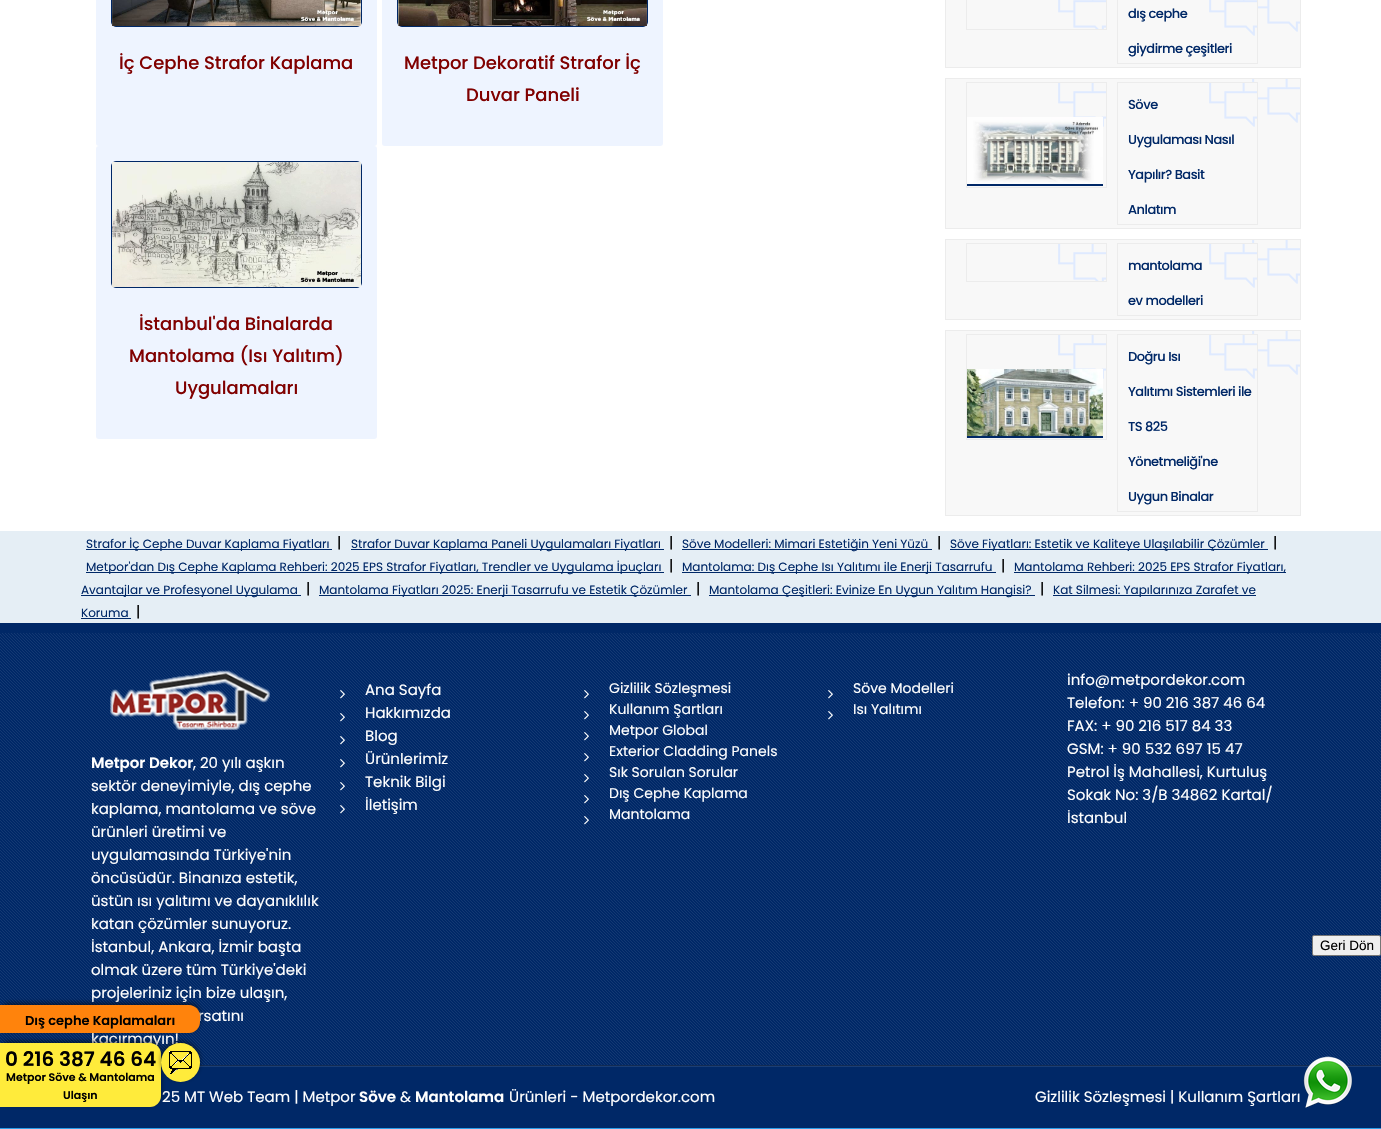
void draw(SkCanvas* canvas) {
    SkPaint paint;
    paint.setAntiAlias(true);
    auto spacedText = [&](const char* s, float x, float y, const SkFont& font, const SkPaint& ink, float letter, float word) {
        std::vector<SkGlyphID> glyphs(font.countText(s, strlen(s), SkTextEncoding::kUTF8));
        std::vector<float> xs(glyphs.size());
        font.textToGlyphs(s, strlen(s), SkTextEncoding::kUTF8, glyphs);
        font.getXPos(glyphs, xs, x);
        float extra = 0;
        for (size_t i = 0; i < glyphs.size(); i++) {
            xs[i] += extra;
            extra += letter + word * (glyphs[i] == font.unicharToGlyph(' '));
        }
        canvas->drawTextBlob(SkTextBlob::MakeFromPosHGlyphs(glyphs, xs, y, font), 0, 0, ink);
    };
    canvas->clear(0xFFE5EEF5);
    paint.setColor(0xFF2A9EEA);
    canvas->drawRect(SkRect::MakeXYWH(0, 1128, 1381, 1), paint);
    paint.setColor(0xFFFFFFFF);
    canvas->drawRect(SkRect::MakeXYWH(0, 0, 1381, 531), paint);
    paint.setColor(0xFFEEF4FF);
    canvas->drawRoundRect(SkRect::MakeXYWH(96, -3, 281, 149), 3, 3, paint);
    paint.setStyle(SkPaint::kStroke_Style);
    paint.setStrokeWidth(1);
    paint.setColor(0xFF002867);
    canvas->drawRoundRect(SkRect::MakeXYWH(111.5f, -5.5f, 250, 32), 4.5f, 4.5f, paint);
    canvas->drawImageRect(SkImages::DeferredFromEncodedData(SkData::MakeFromFileName("img1.png")), SkRect::MakeXYWH(112, 0, 249, 26), SkSamplingOptions());
    SkFont font1(fontMgr->matchFamilyStyle("Poppins", SkFontStyle(500, SkFontStyle::kNormal_Width, SkFontStyle::kUpright_Slant)), 18);
    font1.setSubpixel(true);
    paint.setStyle(SkPaint::kFill_Style);
    paint.setColor(0xFF800000);
    canvas->drawString("İç Cephe Strafor Kaplama", 119, 69, font1, paint);
    paint.setColor(0xFFEEF4FF);
    canvas->drawRoundRect(SkRect::MakeXYWH(382, -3, 281, 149), 3, 3, paint);
    paint.setStyle(SkPaint::kStroke_Style);
    paint.setColor(0xFF002867);
    canvas->drawRoundRect(SkRect::MakeXYWH(397.5f, -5.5f, 250, 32), 4.5f, 4.5f, paint);
    canvas->drawImageRect(SkImages::DeferredFromEncodedData(SkData::MakeFromFileName("img2.png")), SkRect::MakeXYWH(398, 0, 249, 26), SkSamplingOptions());
    paint.setStyle(SkPaint::kFill_Style);
    paint.setColor(0xFF800000);
    canvas->drawString("Metpor Dekoratif Strafor İç", 404, 69, font1, paint);
    canvas->drawString("Duvar Paneli", 466, 101, font1, paint);
    paint.setColor(0xFFEEF4FF);
    canvas->drawRoundRect(SkRect::MakeXYWH(96, 146, 281, 293), 3, 3, paint);
    paint.setStyle(SkPaint::kStroke_Style);
    paint.setColor(0xFF002867);
    canvas->drawRoundRect(SkRect::MakeXYWH(111.5f, 161.5f, 250, 126), 4.5f, 4.5f, paint);
    canvas->drawImageRect(SkImages::DeferredFromEncodedData(SkData::MakeFromFileName("img3.png")), SkRect::MakeXYWH(112, 162, 249, 125), SkSamplingOptions());
    paint.setStyle(SkPaint::kFill_Style);
    paint.setColor(0xFF800000);
    canvas->drawString("İstanbul'da Binalarda", 139, 330, font1, paint);
    canvas->drawString("Mantolama (Isı Yalıtım)", 129, 362, font1, paint);
    canvas->drawString("Uygulamaları", 175, 394, font1, paint);
    paint.setColor(0xFFF8F8F8);
    canvas->drawRect(SkRect::MakeXYWH(945.5f, -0.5f, 355, 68), paint);
    paint.setStyle(SkPaint::kStroke_Style);
    paint.setColor(0xFFECECEC);
    canvas->drawRect(SkRect::MakeXYWH(945.5f, -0.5f, 355, 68), paint);
    canvas->drawRect(SkRect::MakeXYWH(966.5f, -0.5f, 140, 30), paint);
    canvas->drawImageRect(SkImages::DeferredFromEncodedData(SkData::MakeFromFileName("img4.png")), SkRect::MakeXYWH(1058, 0, 48, 29), SkSamplingOptions());
    canvas->drawRect(SkRect::MakeXYWH(1117.5f, -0.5f, 140, 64), paint);
    SkFont font2(fontMgr->matchFamilyStyle("Poppins", SkFontStyle(500, SkFontStyle::kNormal_Width, SkFontStyle::kUpright_Slant)), 13);
    font2.setSubpixel(true);
    paint.setStyle(SkPaint::kFill_Style);
    paint.setColor(0xFF002867);
    spacedText("dış cephe", 1128, 18, font2, paint, -0.5f, 0);
    spacedText("giydirme çeşitleri", 1128, 53, font2, paint, -0.5f, 0);
    canvas->drawImageRect(SkImages::DeferredFromEncodedData(SkData::MakeFromFileName("img5.png")), SkRect::MakeXYWH(1209, 0, 48, 36), SkSamplingOptions());
    canvas->drawImageRect(SkImages::DeferredFromEncodedData(SkData::MakeFromFileName("img6.png")), SkRect::MakeXYWH(1258, 0, 42, 32), SkSamplingOptions());
    paint.setColor(0xFFF8F8F8);
    canvas->drawRect(SkRect::MakeXYWH(945.5f, 78.5f, 355, 150), paint);
    paint.setStyle(SkPaint::kStroke_Style);
    paint.setColor(0xFFECECEC);
    canvas->drawRect(SkRect::MakeXYWH(945.5f, 78.5f, 355, 150), paint);
    canvas->drawRect(SkRect::MakeXYWH(966.5f, 82.5f, 140, 105), paint);
    canvas->drawImageRect(SkImages::DeferredFromEncodedData(SkData::MakeFromFileName("img7.png")), SkRect::MakeXYWH(1058, 83, 48, 44), SkSamplingOptions());
    canvas->drawImageRect(SkImages::DeferredFromEncodedData(SkData::MakeFromFileName("img8.png")), SkRect::MakeXYWH(967, 117, 136, 67), SkSamplingOptions());
    paint.setStyle(SkPaint::kFill_Style);
    paint.setColor(0xFF002867);
    canvas->drawRect(SkRect::MakeXYWH(967, 184, 136, 2), paint);
    canvas->drawImageRect(SkImages::DeferredFromEncodedData(SkData::MakeFromFileName("img7.png")), SkRect::MakeXYWH(1252, 79, 48, 44), SkSamplingOptions());
    paint.setColor(0xFFF8F8F8);
    canvas->drawRect(SkRect::MakeXYWH(1252, 83, 5, 17), paint);
    paint.setStyle(SkPaint::kStroke_Style);
    paint.setColor(0xFFECECEC);
    canvas->drawRect(SkRect::MakeXYWH(1117.5f, 82.5f, 140, 142), paint);
    canvas->drawImageRect(SkImages::DeferredFromEncodedData(SkData::MakeFromFileName("img7.png")), SkRect::MakeXYWH(1209, 83, 48, 44), SkSamplingOptions());
    paint.setStyle(SkPaint::kFill_Style);
    paint.setColor(0xFF002867);
    spacedText("Söve", 1128, 109, font2, paint, -0.5f, 0);
    spacedText("Uygulaması Nasıl", 1128, 144, font2, paint, -0.5f, 0);
    spacedText("Yapılır? Basit", 1128, 179, font2, paint, -0.5f, 0);
    spacedText("Anlatım", 1128, 214, font2, paint, -0.5f, 0);
    paint.setColor(0xFFF8F8F8);
    canvas->drawRect(SkRect::MakeXYWH(945.5f, 239.5f, 355, 80), paint);
    paint.setStyle(SkPaint::kStroke_Style);
    paint.setColor(0xFFECECEC);
    canvas->drawRect(SkRect::MakeXYWH(945.5f, 239.5f, 355, 80), paint);
    canvas->drawRect(SkRect::MakeXYWH(966.5f, 243.5f, 140, 38), paint);
    canvas->drawImageRect(SkImages::DeferredFromEncodedData(SkData::MakeFromFileName("img9.png")), SkRect::MakeXYWH(1058, 244, 48, 37), SkSamplingOptions());
    canvas->drawImageRect(SkImages::DeferredFromEncodedData(SkData::MakeFromFileName("img7.png")), SkRect::MakeXYWH(1252, 240, 48, 44), SkSamplingOptions());
    paint.setStyle(SkPaint::kFill_Style);
    paint.setColor(0xFFF8F8F8);
    canvas->drawRect(SkRect::MakeXYWH(1252, 244, 5, 17), paint);
    paint.setStyle(SkPaint::kStroke_Style);
    paint.setColor(0xFFECECEC);
    canvas->drawRect(SkRect::MakeXYWH(1117.5f, 243.5f, 140, 72), paint);
    paint.setStyle(SkPaint::kFill_Style);
    paint.setColor(0xFF002867);
    spacedText("mantolama", 1128, 270, font2, paint, -0.5f, 0);
    spacedText("ev modelleri", 1128, 305, font2, paint, -0.5f, 0);
    canvas->drawImageRect(SkImages::DeferredFromEncodedData(SkData::MakeFromFileName("img7.png")), SkRect::MakeXYWH(1209, 244, 48, 44), SkSamplingOptions());
    paint.setColor(0xFFF8F8F8);
    canvas->drawRect(SkRect::MakeXYWH(945.5f, 330.5f, 355, 185), paint);
    paint.setStyle(SkPaint::kStroke_Style);
    paint.setColor(0xFFECECEC);
    canvas->drawRect(SkRect::MakeXYWH(945.5f, 330.5f, 355, 185), paint);
    canvas->drawRect(SkRect::MakeXYWH(966.5f, 334.5f, 140, 105), paint);
    canvas->drawImageRect(SkImages::DeferredFromEncodedData(SkData::MakeFromFileName("img7.png")), SkRect::MakeXYWH(1058, 335, 48, 44), SkSamplingOptions());
    canvas->drawImageRect(SkImages::DeferredFromEncodedData(SkData::MakeFromFileName("img10.png")), SkRect::MakeXYWH(967, 369, 136, 67), SkSamplingOptions());
    paint.setStyle(SkPaint::kFill_Style);
    paint.setColor(0xFF002867);
    canvas->drawRect(SkRect::MakeXYWH(967, 436, 136, 2), paint);
    canvas->drawImageRect(SkImages::DeferredFromEncodedData(SkData::MakeFromFileName("img7.png")), SkRect::MakeXYWH(1252, 331, 48, 44), SkSamplingOptions());
    paint.setColor(0xFFF8F8F8);
    canvas->drawRect(SkRect::MakeXYWH(1252, 335, 5, 17), paint);
    paint.setStyle(SkPaint::kStroke_Style);
    paint.setColor(0xFFECECEC);
    canvas->drawRect(SkRect::MakeXYWH(1117.5f, 334.5f, 140, 177), paint);
    canvas->drawImageRect(SkImages::DeferredFromEncodedData(SkData::MakeFromFileName("img7.png")), SkRect::MakeXYWH(1209, 335, 48, 44), SkSamplingOptions());
    paint.setStyle(SkPaint::kFill_Style);
    paint.setColor(0xFF002867);
    spacedText("Doğru Isı", 1128, 361, font2, paint, -0.5f, 0);
    spacedText("Yalıtımı Sistemleri ile", 1128, 396, font2, paint, -0.5f, 0);
    spacedText("TS 825", 1128, 431, font2, paint, -0.5f, 0);
    spacedText("Yönetmeliği'ne", 1128, 466, font2, paint, -0.5f, 0);
    spacedText("Uygun Binalar", 1128, 501, font2, paint, -0.5f, 0);
    canvas->drawRect(SkRect::MakeXYWH(86, 549, 246, 1), paint);
    SkFont font3(fontMgr->matchFamilyStyle("Poppins", SkFontStyle::Normal()), 12);
    font3.setSubpixel(true);
    canvas->drawString("Strafor İç Cephe Duvar Kaplama Fiyatları", 86, 548, font3, paint);
    SkFont font4(fontMgr->matchFamilyStyle("Poppins", SkFontStyle::Normal()), 15);
    font4.setSubpixel(true);
    paint.setColor(0xFF000000);
    canvas->drawString("|", 337, 548, font4, paint);
    paint.setColor(0xFF002867);
    canvas->drawRect(SkRect::MakeXYWH(351, 549, 313, 1), paint);
    canvas->drawString("Strafor Duvar Kaplama Paneli Uygulamaları Fiyatları", 351, 548, font3, paint);
    paint.setColor(0xFF000000);
    canvas->drawString("|", 669, 548, font4, paint);
    paint.setColor(0xFF002867);
    canvas->drawRect(SkRect::MakeXYWH(682, 549, 250, 1), paint);
    canvas->drawString("Söve Modelleri: Mimari Estetiğin Yeni Yüzü", 682, 548, font3, paint);
    paint.setColor(0xFF000000);
    canvas->drawString("|", 937, 548, font4, paint);
    paint.setColor(0xFF002867);
    canvas->drawRect(SkRect::MakeXYWH(950, 549, 318, 1), paint);
    canvas->drawString("Söve Fiyatları: Estetik ve Kaliteye Ulaşılabilir Çözümler", 950, 548, font3, paint);
    paint.setColor(0xFF000000);
    canvas->drawString("|", 1273, 548, font4, paint);
    paint.setColor(0xFF002867);
    canvas->drawRect(SkRect::MakeXYWH(86, 572, 578, 1), paint);
    canvas->drawString("Metpor'dan Dış Cephe Kaplama Rehberi: 2025 EPS Strafor Fiyatları, Trendler ve Uygulama İpuçları", 86, 571, font3, paint);
    paint.setColor(0xFF000000);
    canvas->drawString("|", 669, 571, font4, paint);
    paint.setColor(0xFF002867);
    canvas->drawRect(SkRect::MakeXYWH(682, 572, 314, 1), paint);
    canvas->drawString("Mantolama: Dış Cephe Isı Yalıtımı ile Enerji Tasarrufu", 682, 571, font3, paint);
    paint.setColor(0xFF000000);
    canvas->drawString("|", 1001, 571, font4, paint);
    paint.setColor(0xFF002867);
    canvas->drawRect(SkRect::MakeXYWH(1014, 572, 272, 1), paint);
    canvas->drawString("Mantolama Rehberi: 2025 EPS Strafor Fiyatları,", 1014, 571, font3, paint);
    canvas->drawRect(SkRect::MakeXYWH(81, 595, 220, 1), paint);
    canvas->drawString("Avantajlar ve Profesyonel Uygulama", 81, 594, font3, paint);
    paint.setColor(0xFF000000);
    canvas->drawString("|", 306, 594, font4, paint);
    paint.setColor(0xFF002867);
    canvas->drawRect(SkRect::MakeXYWH(319, 595, 372, 1), paint);
    canvas->drawString("Mantolama Fiyatları 2025: Enerji Tasarrufu ve Estetik Çözümler", 319, 594, font3, paint);
    paint.setColor(0xFF000000);
    canvas->drawString("|", 696, 594, font4, paint);
    paint.setColor(0xFF002867);
    canvas->drawRect(SkRect::MakeXYWH(709, 595, 326, 1), paint);
    canvas->drawString("Mantolama Çeşitleri: Evinize En Uygun Yalıtım Hangisi?", 709, 594, font3, paint);
    paint.setColor(0xFF000000);
    canvas->drawString("|", 1040, 594, font4, paint);
    paint.setColor(0xFF002867);
    canvas->drawRect(SkRect::MakeXYWH(1053, 595, 203, 1), paint);
    canvas->drawString("Kat Silmesi: Yapılarınıza Zarafet ve", 1053, 594, font3, paint);
    canvas->drawString("Koruma", 81, 617, font3, paint);
    canvas->drawRect(SkRect::MakeXYWH(81, 618, 50, 1), paint);
    paint.setColor(0xFF000000);
    canvas->drawString("|", 136, 617, font4, paint);
    paint.setColor(0xFF002867);
    canvas->drawRect(SkRect::MakeXYWH(0, 623, 1381, 442), paint);
    canvas->drawImageRect(SkImages::DeferredFromEncodedData(SkData::MakeFromFileName("img11.png")), SkRect::MakeXYWH(0, 633, 1381, 432), SkSamplingOptions());
    canvas->drawImageRect(SkImages::DeferredFromEncodedData(SkData::MakeFromFileName("img12.png")), SkRect::MakeXYWH(110, 670, 160, 60), SkSamplingOptions());
    SkFont font5(fontMgr->matchFamilyStyle("Poppins", SkFontStyle(600, SkFontStyle::kNormal_Width, SkFontStyle::kUpright_Slant)), 15);
    font5.setSubpixel(true);
    paint.setColor(0xFFFFFFFF);
    canvas->drawString("Metpor Dekor", 91, 768, font5, paint);
    canvas->drawString(", 20 yılı aşkın", 193, 768, font4, paint);
    canvas->drawString("sektör deneyimiyle, dış cephe", 91, 791, font4, paint);
    canvas->drawString("kaplama, mantolama ve söve", 91, 814, font4, paint);
    canvas->drawString("ürünleri üretimi ve", 91, 837, font4, paint);
    canvas->drawString("uygulamasında Türkiye'nin", 91, 860, font4, paint);
    canvas->drawString("öncüsüdür. Binanıza estetik,", 91, 883, font4, paint);
    canvas->drawString("üstün ısı yalıtımı ve dayanıklılık", 91, 906, font4, paint);
    canvas->drawString("katan çözümler sunuyoruz.", 91, 929, font4, paint);
    canvas->drawString("İstanbul, Ankara, İzmir başta", 91, 952, font4, paint);
    canvas->drawString("olmak üzere tüm Türkiye'deki", 91, 975, font4, paint);
    canvas->drawString("projeleriniz için bize ulaşın,", 91, 998, font4, paint);
    canvas->drawString("rsatını", 198, 1021, font4, paint);
    canvas->drawString("kaçırmayın!", 91, 1044, font4, paint);
    canvas->drawImageRect(SkImages::DeferredFromEncodedData(SkData::MakeFromFileName("img13.png")), SkRect::MakeXYWH(340, 690, 5, 9), SkSamplingOptions());
    canvas->drawString("Ana Sayfa", 365, 695, font4, paint);
    canvas->drawImageRect(SkImages::DeferredFromEncodedData(SkData::MakeFromFileName("img14.png")), SkRect::MakeXYWH(340, 713, 5, 9), SkSamplingOptions());
    canvas->drawString("Hakkımızda", 365, 718, font4, paint);
    canvas->drawImageRect(SkImages::DeferredFromEncodedData(SkData::MakeFromFileName("img15.png")), SkRect::MakeXYWH(340, 736, 5, 9), SkSamplingOptions());
    canvas->drawString("Blog", 365, 741, font4, paint);
    canvas->drawImageRect(SkImages::DeferredFromEncodedData(SkData::MakeFromFileName("img13.png")), SkRect::MakeXYWH(340, 759, 5, 9), SkSamplingOptions());
    canvas->drawString("Ürünlerimiz", 365, 764, font4, paint);
    canvas->drawImageRect(SkImages::DeferredFromEncodedData(SkData::MakeFromFileName("img14.png")), SkRect::MakeXYWH(340, 782, 5, 9), SkSamplingOptions());
    canvas->drawString("Teknik Bilgi", 365, 787, font4, paint);
    canvas->drawImageRect(SkImages::DeferredFromEncodedData(SkData::MakeFromFileName("img15.png")), SkRect::MakeXYWH(340, 805, 5, 9), SkSamplingOptions());
    canvas->drawString("İletişim", 365, 810, font4, paint);
    canvas->drawImageRect(SkImages::DeferredFromEncodedData(SkData::MakeFromFileName("img14.png")), SkRect::MakeXYWH(584, 690, 5, 9), SkSamplingOptions());
    SkFont font6(fontMgr->matchFamilyStyle("Poppins", SkFontStyle::Normal()), 14);
    font6.setSubpixel(true);
    canvas->drawString("Gizlilik Sözleşmesi", 609, 693, font6, paint);
    canvas->drawImageRect(SkImages::DeferredFromEncodedData(SkData::MakeFromFileName("img14.png")), SkRect::MakeXYWH(584, 711, 5, 9), SkSamplingOptions());
    canvas->drawString("Kullanım Şartları", 609, 714, font6, paint);
    canvas->drawImageRect(SkImages::DeferredFromEncodedData(SkData::MakeFromFileName("img14.png")), SkRect::MakeXYWH(584, 732, 5, 9), SkSamplingOptions());
    canvas->drawString("Metpor Global", 609, 735, font6, paint);
    canvas->drawImageRect(SkImages::DeferredFromEncodedData(SkData::MakeFromFileName("img14.png")), SkRect::MakeXYWH(584, 753, 5, 9), SkSamplingOptions());
    canvas->drawString("Exterior Cladding Panels", 609, 756, font6, paint);
    canvas->drawImageRect(SkImages::DeferredFromEncodedData(SkData::MakeFromFileName("img14.png")), SkRect::MakeXYWH(584, 774, 5, 9), SkSamplingOptions());
    canvas->drawString("Sık Sorulan Sorular", 609, 777, font6, paint);
    canvas->drawImageRect(SkImages::DeferredFromEncodedData(SkData::MakeFromFileName("img14.png")), SkRect::MakeXYWH(584, 795, 5, 9), SkSamplingOptions());
    canvas->drawString("Dış Cephe Kaplama", 609, 798, font6, paint);
    canvas->drawImageRect(SkImages::DeferredFromEncodedData(SkData::MakeFromFileName("img14.png")), SkRect::MakeXYWH(584, 816, 5, 9), SkSamplingOptions());
    canvas->drawString("Mantolama", 609, 819, font6, paint);
    canvas->drawImageRect(SkImages::DeferredFromEncodedData(SkData::MakeFromFileName("img15.png")), SkRect::MakeXYWH(828, 690, 5, 9), SkSamplingOptions());
    canvas->drawString("Söve Modelleri", 853, 693, font6, paint);
    canvas->drawImageRect(SkImages::DeferredFromEncodedData(SkData::MakeFromFileName("img15.png")), SkRect::MakeXYWH(828, 711, 5, 9), SkSamplingOptions());
    canvas->drawString("Isı Yalıtımı", 853, 714, font6, paint);
    canvas->drawString("info@metpordekor.com", 1067, 685, font4, paint);
    canvas->drawString("Telefon: + 90 216 387 46 64", 1067, 708, font4, paint);
    canvas->drawString("FAX: + 90 216 517 84 33", 1067, 731, font4, paint);
    canvas->drawString("GSM: + 90 532 697 15 47", 1067, 754, font4, paint);
    canvas->drawString("Petrol İş Mahallesi, Kurtuluş", 1067, 777, font4, paint);
    canvas->drawString("Sokak No: 3/B 34862 Kartal/", 1067, 800, font4, paint);
    canvas->drawString("İstanbul", 1067, 823, font4, paint);
    paint.setColor(0xFF002867);
    canvas->drawRect(SkRect::MakeXYWH(0, 1067, 1381, 61), paint);
    paint.setColor(0xFF1A3E76);
    canvas->drawRect(SkRect::MakeXYWH(161, 1066, 1220, 1), paint);
    paint.setColor(0xFF122B53);
    canvas->drawRect(SkRect::MakeXYWH(161, 1065, 1220, 1), paint);
    paint.setColor(0xFFFFFFFF);
    canvas->drawString("25 MT Web Team | Metpor", 162, 1102, font4, paint);
    canvas->drawString("Söve", 359, 1102, font5, paint);
    canvas->drawString("&", 400, 1102, font4, paint);
    canvas->drawString("Mantolama", 415, 1102, font5, paint);
    canvas->drawString("Ürünleri - Metpordekor.com", 509, 1102, font4, paint);
    canvas->drawString("Gizlilik Sözleşmesi | Kullanım Şartları", 1035, 1102, font4, paint);
    paint.setColor(0xFFEFEFEF);
    canvas->drawRoundRect(SkRect::MakeXYWH(1312.5f, 935.5f, 68, 20), 1.5f, 1.5f, paint);
    paint.setStyle(SkPaint::kStroke_Style);
    paint.setColor(0xFF767676);
    canvas->drawRoundRect(SkRect::MakeXYWH(1312.5f, 935.5f, 68, 20), 1.5f, 1.5f, paint);
    SkFont font7(fontMgr->matchFamilyStyle("Liberation Sans", SkFontStyle::Normal()), 13.5f);
    font7.setSubpixel(true);
    paint.setStyle(SkPaint::kFill_Style);
    paint.setColor(0xFF000000);
    canvas->drawString("Geri Dön", 1320, 950, font7, paint);
    paint.setColor(0x80000000);
    paint.setMaskFilter(SkMaskFilter::MakeBlur(kNormal_SkBlurStyle, 2.5f));
    canvas->drawRoundRect(SkRect::MakeXYWH(0, 1003, 200, 28), 11, 11, paint);
    paint.setMaskFilter(nullptr);
    paint.setColor(0xFFFF830C);
    canvas->drawPath(SkPathBuilder().moveTo(0, 1005).lineTo(189, 1005).cubicTo(195, 1005, 200, 1010, 200, 1016).lineTo(200, 1022).cubicTo(200, 1028, 195, 1033, 189, 1033).lineTo(0, 1033).close().detach(), paint);
    SkFont font8(fontMgr->matchFamilyStyle("Poppins", SkFontStyle(600, SkFontStyle::kNormal_Width, SkFontStyle::kUpright_Slant)), 13);
    font8.setSubpixel(true);
    paint.setColor(0xFF000000);
    canvas->drawString("Dış cephe Kaplamaları", 25, 1025, font8, paint);
    paint.setColor(0x80000000);
    paint.setMaskFilter(SkMaskFilter::MakeBlur(kNormal_SkBlurStyle, 2.5f));
    canvas->drawRoundRect(SkRect::MakeXYWH(0, 1041, 161, 64), 11, 11, paint);
    paint.setMaskFilter(nullptr);
    paint.setColor(0xFFFFEB3B);
    canvas->drawPath(SkPathBuilder().moveTo(0, 1043).lineTo(150, 1043).cubicTo(156, 1043, 161, 1048, 161, 1054).lineTo(161, 1096).cubicTo(161, 1102, 156, 1107, 150, 1107).lineTo(0, 1107).close().detach(), paint);
    SkFont font9(fontMgr->matchFamilyStyle("Poppins", SkFontStyle(600, SkFontStyle::kNormal_Width, SkFontStyle::kUpright_Slant)), 20);
    font9.setSubpixel(true);
    paint.setColor(0xFF000000);
    canvas->drawString("0 216 387 46 64", 5, 1066, font9, paint);
    SkFont font10(fontMgr->matchFamilyStyle("Poppins", SkFontStyle(600, SkFontStyle::kNormal_Width, SkFontStyle::kUpright_Slant)), 11);
    font10.setSubpixel(true);
    canvas->drawString("Metpor Söve & Mantolama", 6, 1081, font10, paint);
    canvas->drawString("Ulaşın", 63, 1099, font10, paint);
    paint.setColor(0x80000000);
    paint.setMaskFilter(SkMaskFilter::MakeBlur(kNormal_SkBlurStyle, 2.5f));
    canvas->drawRoundRect(SkRect::MakeXYWH(161, 1041, 39, 39), 19.5f, 19.5f, paint);
    paint.setMaskFilter(nullptr);
    paint.setColor(0xFFFFEB3B);
    canvas->drawCircle(180.5f, 1062.5f, 19.5f, paint);
    canvas->drawImageRect(SkImages::DeferredFromEncodedData(SkData::MakeFromFileName("img16.png")), SkRect::MakeXYWH(169, 1051, 23, 23), SkSamplingOptions());
    canvas->drawImageRect(SkImages::DeferredFromEncodedData(SkData::MakeFromFileName("img17.png")), SkRect::MakeXYWH(1303, 1056, 50, 52), SkSamplingOptions());
}
